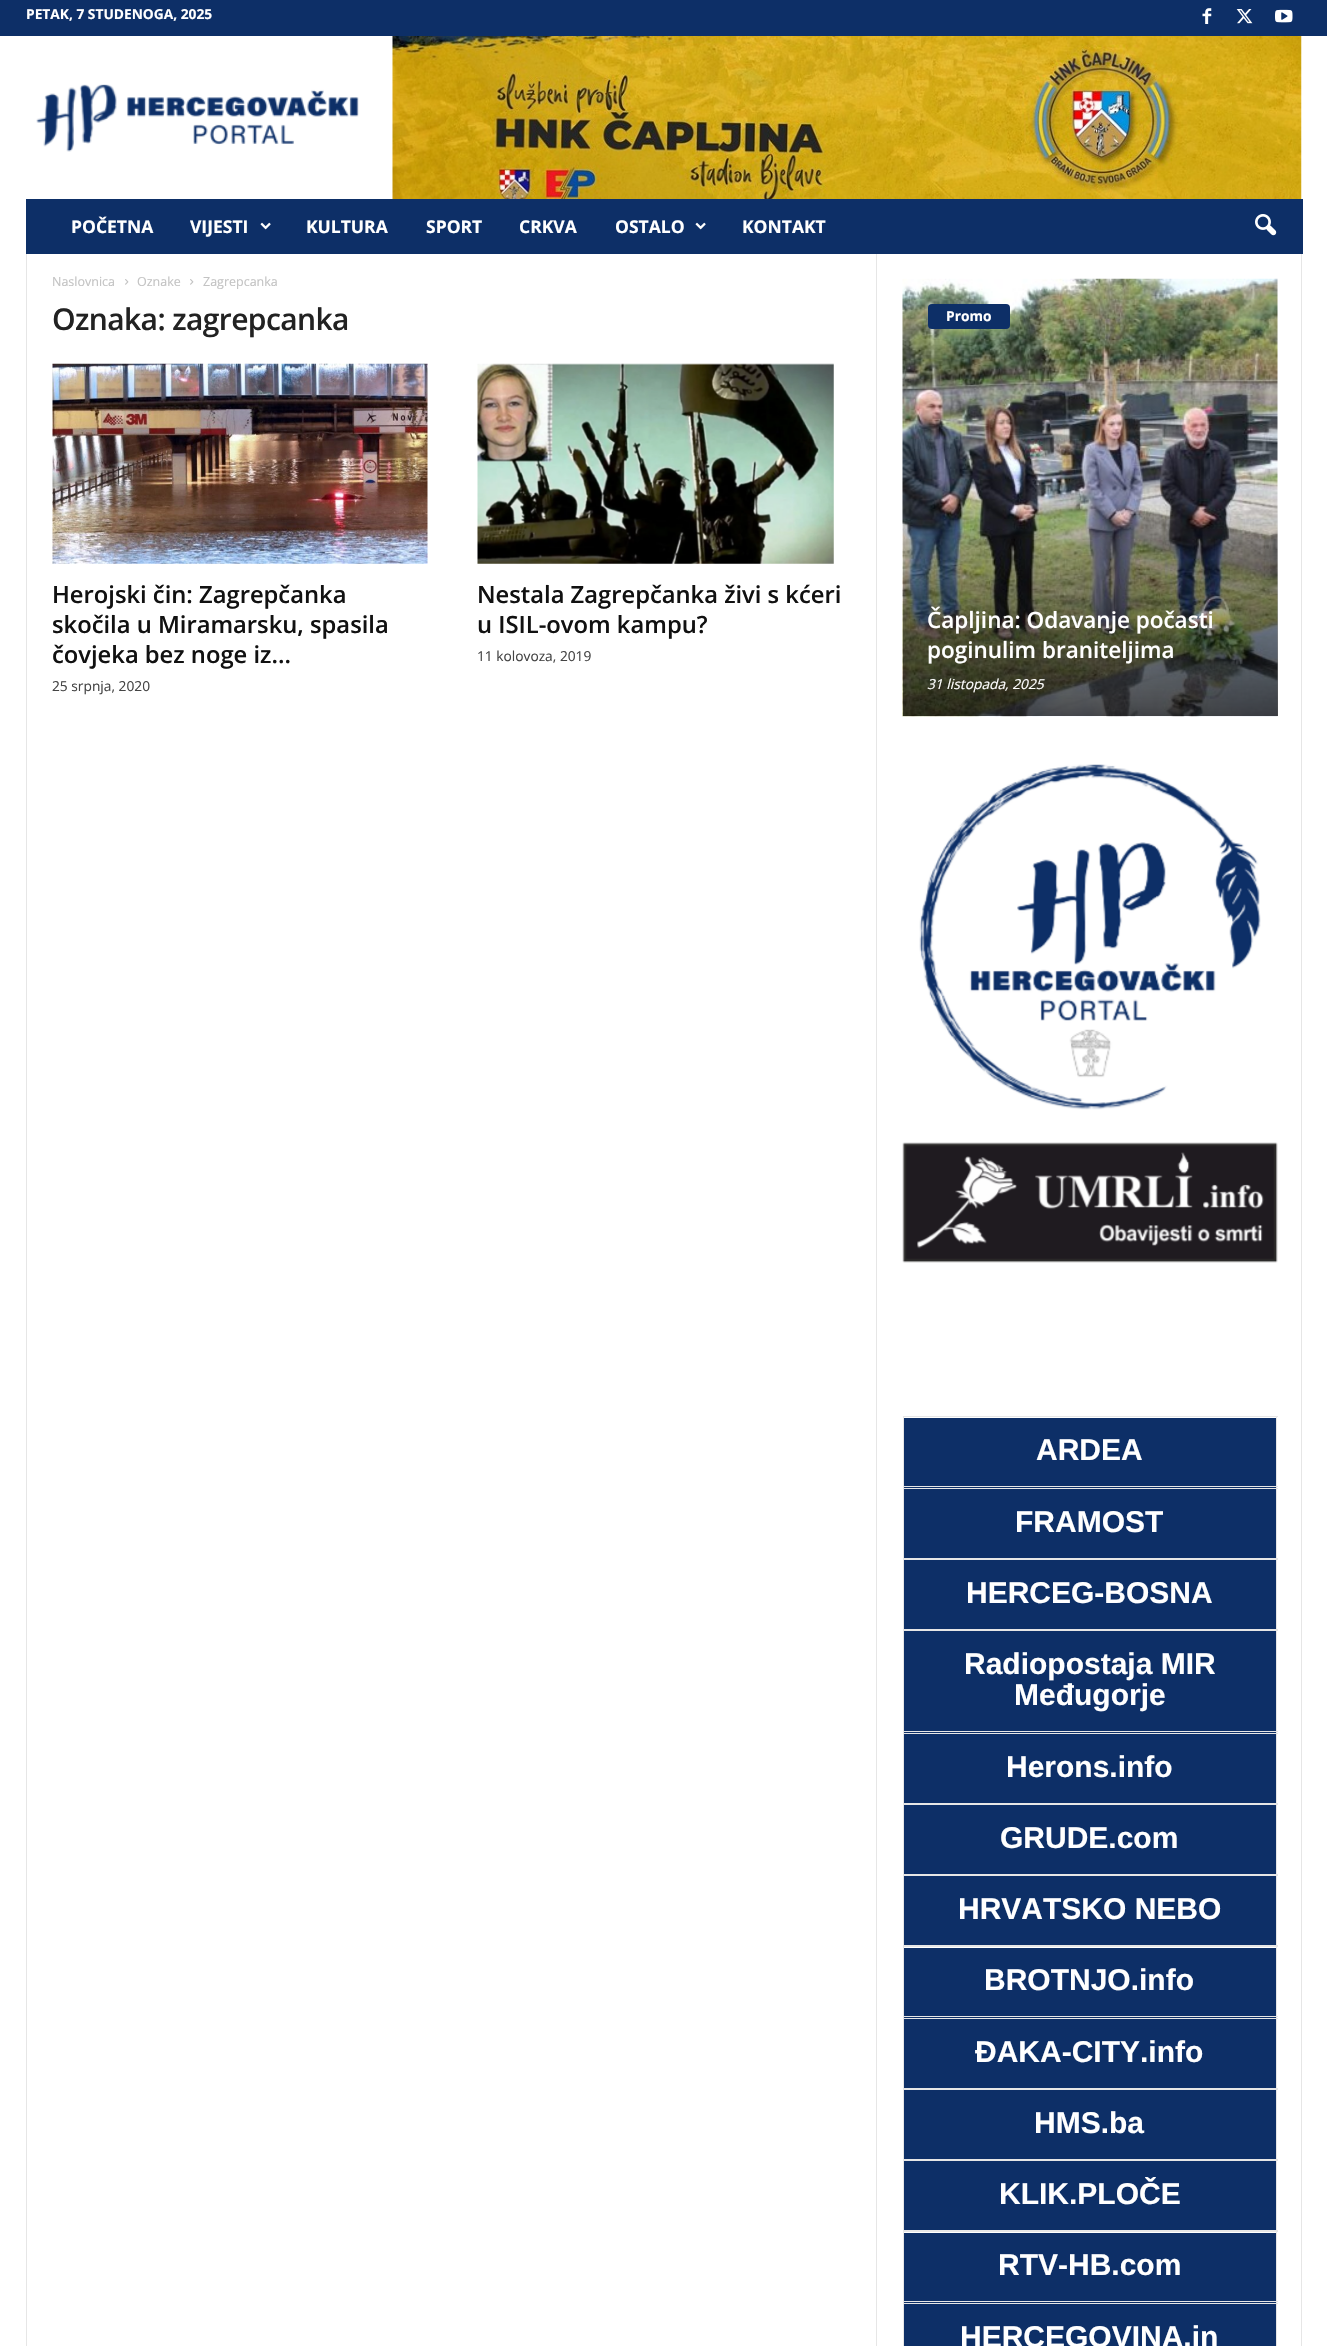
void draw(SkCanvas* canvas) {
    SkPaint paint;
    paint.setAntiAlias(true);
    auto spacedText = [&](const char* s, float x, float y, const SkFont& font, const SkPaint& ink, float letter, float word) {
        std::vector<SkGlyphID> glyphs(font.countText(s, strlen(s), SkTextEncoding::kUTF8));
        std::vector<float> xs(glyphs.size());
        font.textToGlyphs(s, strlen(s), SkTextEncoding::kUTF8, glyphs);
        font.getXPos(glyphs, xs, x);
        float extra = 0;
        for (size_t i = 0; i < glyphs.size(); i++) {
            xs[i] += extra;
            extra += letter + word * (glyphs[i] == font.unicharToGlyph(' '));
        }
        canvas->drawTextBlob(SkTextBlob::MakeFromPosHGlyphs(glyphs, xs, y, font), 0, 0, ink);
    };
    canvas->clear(0xFFFFFFFF);
    paint.setColor(0xFF0D2F67);
    canvas->drawRect(SkRect::MakeXYWH(0, 0, 1327, 36), paint);
    SkFont font1(fontMgr->matchFamilyStyle("Open Sans", SkFontStyle::Bold()), 13.75f);
    font1.setSubpixel(true);
    paint.setColor(0xFFFFFFFF);
    canvas->drawString("PETAK, 7 STUDENOGA, 2025", 26, 19, font1, paint);
    canvas->drawImageRect(SkImages::DeferredFromEncodedData(SkData::MakeFromFileName("img1.png")), SkRect::MakeXYWH(1202, 8, 10, 16), SkSamplingOptions());
    canvas->drawImageRect(SkImages::DeferredFromEncodedData(SkData::MakeFromFileName("img2.png")), SkRect::MakeXYWH(1236, 9, 17, 15), SkSamplingOptions());
    canvas->drawImageRect(SkImages::DeferredFromEncodedData(SkData::MakeFromFileName("img3.png")), SkRect::MakeXYWH(1275, 9, 18, 14), SkSamplingOptions());
    canvas->drawImageRect(SkImages::DeferredFromEncodedData(SkData::MakeFromFileName("img4.png")), SkRect::MakeXYWH(36, 84, 323, 68), SkSamplingOptions());
    canvas->drawImageRect(SkImages::DeferredFromEncodedData(SkData::MakeFromFileName("img5.png")), SkRect::MakeXYWH(392, 36, 910, 163), SkSamplingOptions());
    paint.setColor(0xFF0D2F67);
    canvas->drawRect(SkRect::MakeXYWH(26, 199, 1277, 55), paint);
    SkFont font2(fontMgr->matchFamilyStyle("Open Sans", SkFontStyle::Bold()), 17.5f);
    font2.setSubpixel(true);
    paint.setColor(0xFFFFFFFF);
    canvas->drawString("POČETNA", 71, 233, font2, paint);
    canvas->drawString("VIJESTI", 190, 233, font2, paint);
    canvas->drawImageRect(SkImages::DeferredFromEncodedData(SkData::MakeFromFileName("img6.png")), SkRect::MakeXYWH(260, 222, 11, 8), SkSamplingOptions());
    canvas->drawString("KULTURA", 306, 233, font2, paint);
    canvas->drawString("SPORT", 426, 233, font2, paint);
    canvas->drawString("CRKVA", 519, 233, font2, paint);
    canvas->drawString("OSTALO", 615, 233, font2, paint);
    canvas->drawImageRect(SkImages::DeferredFromEncodedData(SkData::MakeFromFileName("img6.png")), SkRect::MakeXYWH(695, 222, 11, 8), SkSamplingOptions());
    canvas->drawString("KONTAKT", 742, 233, font2, paint);
    canvas->drawImageRect(SkImages::DeferredFromEncodedData(SkData::MakeFromFileName("img7.png")), SkRect::MakeXYWH(1255, 214, 22, 22), SkSamplingOptions());
    paint.setColor(0xFFE6E6E6);
    canvas->drawRect(SkRect::MakeXYWH(26, 254, 1, 2092), paint);
    SkFont font3(fontMgr->matchFamilyStyle("Open Sans", SkFontStyle::Normal()), 12.5f);
    font3.setSubpixel(true);
    paint.setColor(0xFFC3C3C3);
    canvas->drawString("Naslovnica", 52, 286, font3, paint);
    canvas->drawImageRect(SkImages::DeferredFromEncodedData(SkData::MakeFromFileName("img8.png")), SkRect::MakeXYWH(125, 279, 4, 6), SkSamplingOptions());
    canvas->drawString("Oznake", 137, 286, font3, paint);
    canvas->drawImageRect(SkImages::DeferredFromEncodedData(SkData::MakeFromFileName("img8.png")), SkRect::MakeXYWH(190, 279, 4, 6), SkSamplingOptions());
    canvas->drawString("Zagrepcanka", 203, 286, font3, paint);
    SkFont font4(fontMgr->matchFamilyStyle("Open Sans", SkFontStyle(600, SkFontStyle::kNormal_Width, SkFontStyle::kUpright_Slant)), 30);
    font4.setSubpixel(true);
    paint.setColor(0xFF222222);
    spacedText("Oznaka: zagrepcanka", 52, 330, font4, paint, -0.6f, 0);
    canvas->drawImageRect(SkImages::DeferredFromEncodedData(SkData::MakeFromFileName("img9.png")), SkRect::MakeXYWH(52, 363, 376, 201), SkSamplingOptions());
    SkFont font5(fontMgr->matchFamilyStyle("Open Sans", SkFontStyle(600, SkFontStyle::kNormal_Width, SkFontStyle::kUpright_Slant)), 23.75f);
    font5.setSubpixel(true);
    paint.setColor(0xFF111111);
    canvas->drawString("Herojski čin: Zagrepčanka", 52, 603, font5, paint);
    canvas->drawString("skočila u Miramarsku, spasila", 52, 633, font5, paint);
    canvas->drawString("čovjeka bez noge iz...", 52, 663, font5, paint);
    SkFont font6(fontMgr->matchFamilyStyle("Open Sans", SkFontStyle::Normal()), 13.75f);
    font6.setSubpixel(true);
    paint.setColor(0xFF444444);
    canvas->drawString("25 srpnja, 2020", 52, 691, font6, paint);
    canvas->drawImageRect(SkImages::DeferredFromEncodedData(SkData::MakeFromFileName("img10.png")), SkRect::MakeXYWH(477, 363, 357, 201), SkSamplingOptions());
    paint.setColor(0xFF111111);
    canvas->drawString("Nestala Zagrepčanka živi s kćeri", 477, 603, font5, paint);
    canvas->drawString("u ISIL-ovom kampu?", 477, 633, font5, paint);
    paint.setColor(0xFF444444);
    canvas->drawString("11 kolovoza, 2019", 477, 661, font6, paint);
    paint.setColor(0xFFE6E6E6);
    canvas->drawRect(SkRect::MakeXYWH(876, 254, 1, 2092), paint);
    canvas->drawImageRect(SkImages::DeferredFromEncodedData(SkData::MakeFromFileName("img11.png")), SkRect::MakeXYWH(902, 278, 376, 439), SkSamplingOptions());
    paint.setColor(0xFF0D2F67);
    canvas->drawRoundRect(SkRect::MakeXYWH(928, 304, 82, 25), 4, 4, paint);
    paint.setColor(0xFFFFFFFF);
    canvas->drawString("Promo", 946, 321, font1, paint);
    {
        const SkColor colors[] = {0x00000000, 0xB3000000};
        const float stops[] = {0, 1};
        const SkPoint ends[] = {{1090, 498}, {1090, 716}};
        paint.setShader(SkGradientShader::MakeLinear(ends, colors, stops, 2, SkTileMode::kClamp));
        paint.setAlpha(255);
    }
    canvas->drawRect(SkRect::MakeXYWH(903, 505, 375, 211), paint);
    SkFont font7(fontMgr->matchFamilyStyle("Open Sans", SkFontStyle(600, SkFontStyle::kNormal_Width, SkFontStyle::kUpright_Slant)), 22.5f);
    font7.setSubpixel(true);
    paint.setShader(nullptr);
    paint.setColor(0xFFFFFFFF);
    canvas->drawString("Čapljina: Odavanje počasti", 927, 628, font7, paint);
    canvas->drawString("poginulim braniteljima", 927, 658, font7, paint);
    SkFont font8(fontMgr->matchFamilyStyle("Open Sans", SkFontStyle::Italic()), 13.75f);
    font8.setSubpixel(true);
    canvas->drawString("31 listopada, 2025", 927, 689, font8, paint);
    canvas->drawImageRect(SkImages::DeferredFromEncodedData(SkData::MakeFromFileName("img12.png")), SkRect::MakeXYWH(919, 764, 342, 346), SkSamplingOptions());
    canvas->drawImageRect(SkImages::DeferredFromEncodedData(SkData::MakeFromFileName("img13.png")), SkRect::MakeXYWH(902, 1142, 376, 121), SkSamplingOptions());
    paint.setColor(0xFF0D2F67);
    canvas->drawRect(SkRect::MakeXYWH(904, 1418, 372, 70), paint);
    paint.setColor(0xFFE6E6E6);
    canvas->drawRect(SkRect::MakeXYWH(903, 1416, 375, 1), paint);
    canvas->drawRect(SkRect::MakeXYWH(1276, 1416, 1, 72), paint);
    canvas->drawRect(SkRect::MakeXYWH(903, 1486, 375, 1), paint);
    canvas->drawRect(SkRect::MakeXYWH(903, 1416, 1, 72), paint);
    SkFont font9(fontMgr->matchFamilyStyle("Liberation Sans", SkFontStyle::Bold()), 30);
    font9.setSubpixel(true);
    paint.setColor(0xFFFFFFFF);
    canvas->drawString("ARDEA", 1036, 1460, font9, paint);
    paint.setColor(0xFF0D2F67);
    canvas->drawRect(SkRect::MakeXYWH(904, 1489, 372, 69), paint);
    paint.setColor(0xFFE6E6E6);
    canvas->drawRect(SkRect::MakeXYWH(903, 1488, 375, 1), paint);
    canvas->drawRect(SkRect::MakeXYWH(1276, 1488, 1, 71), paint);
    canvas->drawRect(SkRect::MakeXYWH(903, 1558, 375, 2), paint);
    canvas->drawRect(SkRect::MakeXYWH(903, 1488, 1, 71), paint);
    paint.setColor(0xFFFFFFFF);
    canvas->drawString("FRAMOST", 1015, 1532, font9, paint);
    paint.setColor(0xFF0D2F67);
    canvas->drawRect(SkRect::MakeXYWH(904, 1560, 372, 69), paint);
    paint.setColor(0xFFE6E6E6);
    canvas->drawRect(SkRect::MakeXYWH(1276, 1559, 1, 71), paint);
    canvas->drawRect(SkRect::MakeXYWH(903, 1629, 375, 2), paint);
    canvas->drawRect(SkRect::MakeXYWH(903, 1559, 1, 71), paint);
    paint.setColor(0xFFFFFFFF);
    canvas->drawString("HERCEG-BOSNA", 966, 1603, font9, paint);
    paint.setColor(0xFF0D2F67);
    canvas->drawRect(SkRect::MakeXYWH(904, 1631, 372, 102), paint);
    paint.setColor(0xFFE6E6E6);
    canvas->drawRect(SkRect::MakeXYWH(1276, 1630, 1, 103), paint);
    canvas->drawRect(SkRect::MakeXYWH(903, 1731, 375, 1), paint);
    canvas->drawRect(SkRect::MakeXYWH(903, 1630, 1, 103), paint);
    paint.setColor(0xFFFFFFFF);
    canvas->drawString("Radiopostaja MIR", 964, 1674, font9, paint);
    canvas->drawString("Međugorje", 1014, 1705, font9, paint);
    paint.setColor(0xFF0D2F67);
    canvas->drawRect(SkRect::MakeXYWH(904, 1734, 372, 69), paint);
    paint.setColor(0xFFE6E6E6);
    canvas->drawRect(SkRect::MakeXYWH(903, 1733, 375, 1), paint);
    canvas->drawRect(SkRect::MakeXYWH(1276, 1733, 1, 71), paint);
    canvas->drawRect(SkRect::MakeXYWH(903, 1803, 375, 2), paint);
    canvas->drawRect(SkRect::MakeXYWH(903, 1733, 1, 71), paint);
    paint.setColor(0xFFFFFFFF);
    canvas->drawString("Herons.info", 1006, 1777, font9, paint);
    paint.setColor(0xFF0D2F67);
    canvas->drawRect(SkRect::MakeXYWH(904, 1805, 372, 69), paint);
    paint.setColor(0xFFE6E6E6);
    canvas->drawRect(SkRect::MakeXYWH(1276, 1804, 1, 71), paint);
    canvas->drawRect(SkRect::MakeXYWH(903, 1874, 375, 2), paint);
    canvas->drawRect(SkRect::MakeXYWH(903, 1804, 1, 71), paint);
    paint.setColor(0xFFFFFFFF);
    canvas->drawString("GRUDE.com", 1000, 1848, font9, paint);
    paint.setColor(0xFF0D2F67);
    canvas->drawRect(SkRect::MakeXYWH(904, 1876, 372, 69), paint);
    paint.setColor(0xFFE6E6E6);
    canvas->drawRect(SkRect::MakeXYWH(1276, 1875, 1, 71), paint);
    canvas->drawRect(SkRect::MakeXYWH(903, 1945, 375, 2), paint);
    canvas->drawRect(SkRect::MakeXYWH(903, 1875, 1, 71), paint);
    paint.setColor(0xFFFFFFFF);
    canvas->drawString("HRVATSKO NEBO", 958, 1919, font9, paint);
    paint.setColor(0xFF0D2F67);
    canvas->drawRect(SkRect::MakeXYWH(904, 1948, 372, 70), paint);
    paint.setColor(0xFFE6E6E6);
    canvas->drawRect(SkRect::MakeXYWH(1276, 1946, 1, 72), paint);
    canvas->drawRect(SkRect::MakeXYWH(903, 2016, 375, 1), paint);
    canvas->drawRect(SkRect::MakeXYWH(903, 1946, 1, 72), paint);
    paint.setColor(0xFFFFFFFF);
    canvas->drawString("BROTNJO.info", 984, 1990, font9, paint);
    paint.setColor(0xFF0D2F67);
    canvas->drawRect(SkRect::MakeXYWH(904, 2019, 372, 69), paint);
    paint.setColor(0xFFE6E6E6);
    canvas->drawRect(SkRect::MakeXYWH(903, 2018, 375, 1), paint);
    canvas->drawRect(SkRect::MakeXYWH(1276, 2018, 1, 71), paint);
    canvas->drawRect(SkRect::MakeXYWH(903, 2088, 375, 2), paint);
    canvas->drawRect(SkRect::MakeXYWH(903, 2018, 1, 71), paint);
    paint.setColor(0xFFFFFFFF);
    canvas->drawString("ĐAKA-CITY.info", 975, 2062, font9, paint);
    paint.setColor(0xFF0D2F67);
    canvas->drawRect(SkRect::MakeXYWH(904, 2090, 372, 69), paint);
    paint.setColor(0xFFE6E6E6);
    canvas->drawRect(SkRect::MakeXYWH(1276, 2089, 1, 71), paint);
    canvas->drawRect(SkRect::MakeXYWH(903, 2159, 375, 2), paint);
    canvas->drawRect(SkRect::MakeXYWH(903, 2089, 1, 71), paint);
    paint.setColor(0xFFFFFFFF);
    canvas->drawString("HMS.ba", 1034, 2133, font9, paint);
    paint.setColor(0xFF0D2F67);
    canvas->drawRect(SkRect::MakeXYWH(904, 2161, 372, 69), paint);
    paint.setColor(0xFFE6E6E6);
    canvas->drawRect(SkRect::MakeXYWH(1276, 2160, 1, 71), paint);
    canvas->drawRect(SkRect::MakeXYWH(903, 2230, 375, 2), paint);
    canvas->drawRect(SkRect::MakeXYWH(903, 2160, 1, 71), paint);
    paint.setColor(0xFFFFFFFF);
    canvas->drawString("KLIK.PLOČE", 999, 2204, font9, paint);
    paint.setColor(0xFF0D2F67);
    canvas->drawRect(SkRect::MakeXYWH(904, 2233, 372, 70), paint);
    paint.setColor(0xFFE6E6E6);
    canvas->drawRect(SkRect::MakeXYWH(1276, 2231, 1, 72), paint);
    canvas->drawRect(SkRect::MakeXYWH(903, 2301, 375, 1), paint);
    canvas->drawRect(SkRect::MakeXYWH(903, 2231, 1, 72), paint);
    paint.setColor(0xFFFFFFFF);
    canvas->drawString("RTV-HB.com", 998, 2275, font9, paint);
    paint.setColor(0xFF0D2F67);
    canvas->drawRect(SkRect::MakeXYWH(904, 2304, 372, 42), paint);
    paint.setColor(0xFFE6E6E6);
    canvas->drawRect(SkRect::MakeXYWH(903, 2303, 375, 1), paint);
    canvas->drawRect(SkRect::MakeXYWH(1276, 2303, 1, 43), paint);
    canvas->drawRect(SkRect::MakeXYWH(903, 2303, 1, 43), paint);
    paint.setColor(0xFFFFFFFF);
    canvas->drawString("HERCEGOVINA.in", 960, 2347, font9, paint);
    paint.setColor(0xFFE6E6E6);
    canvas->drawRect(SkRect::MakeXYWH(1301, 254, 1, 2092), paint);
}
